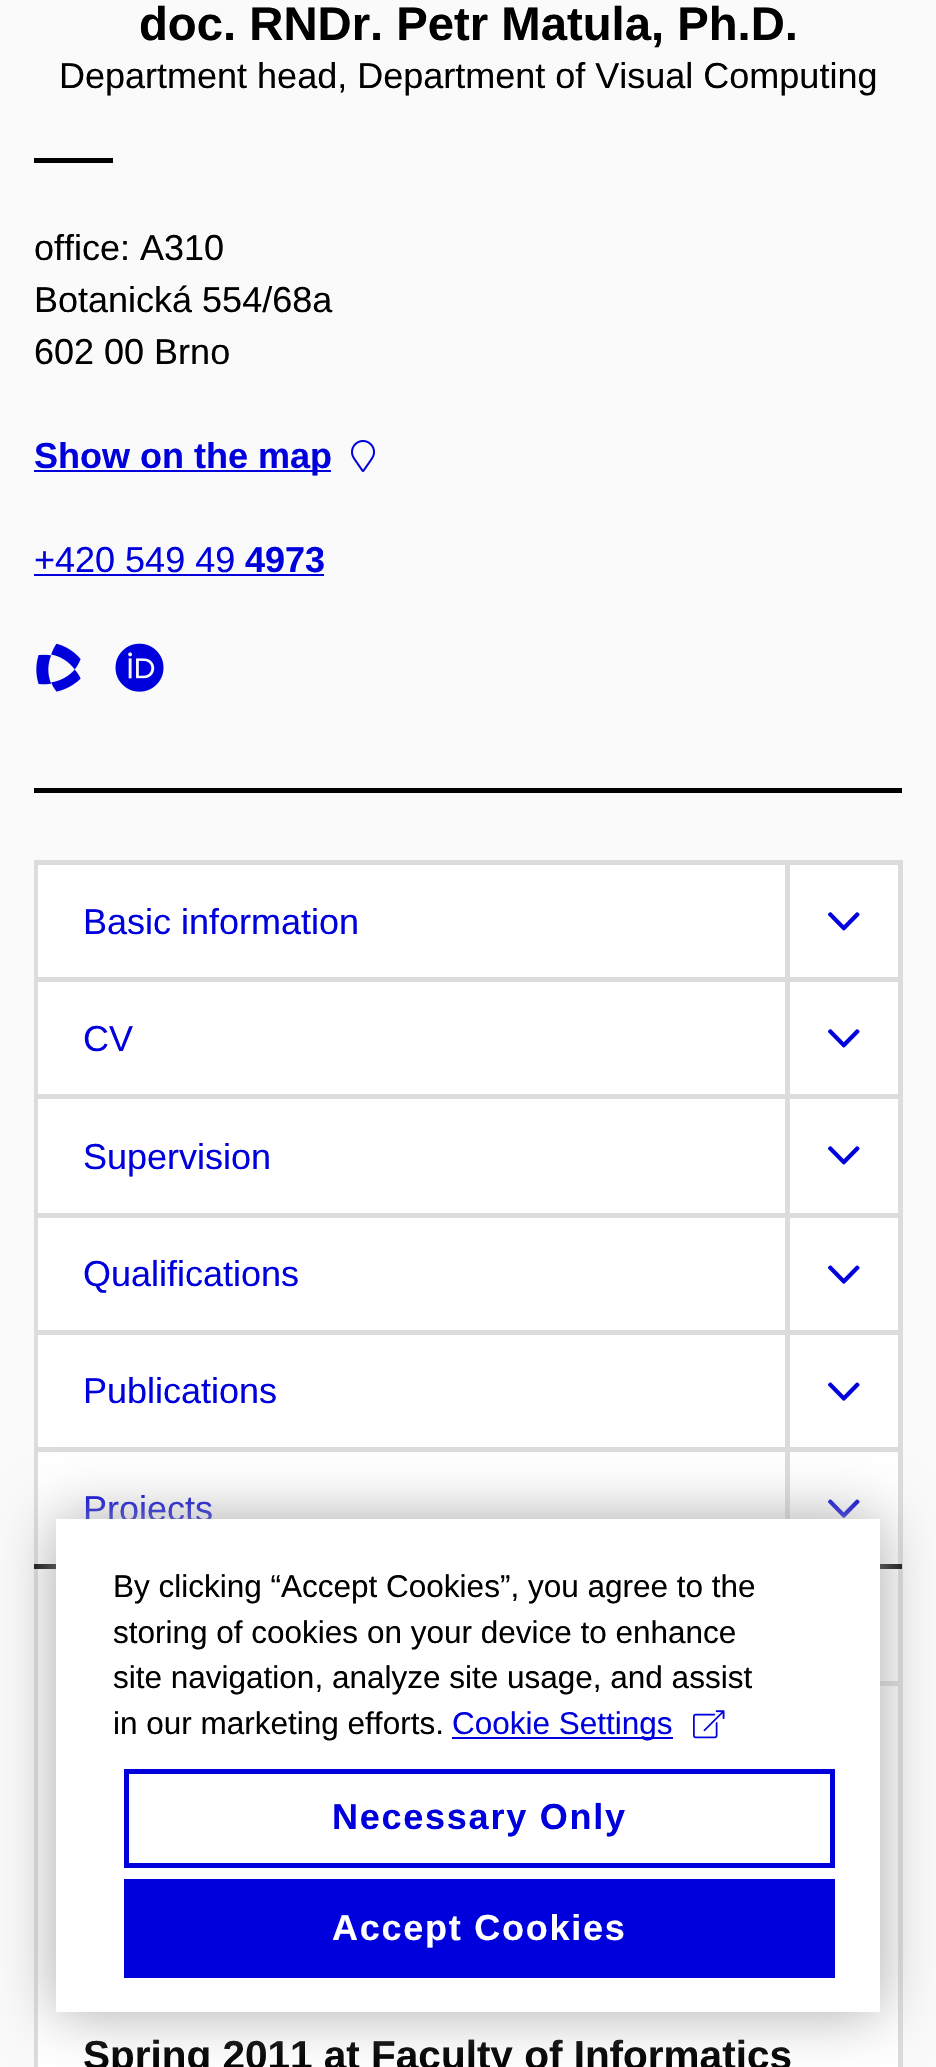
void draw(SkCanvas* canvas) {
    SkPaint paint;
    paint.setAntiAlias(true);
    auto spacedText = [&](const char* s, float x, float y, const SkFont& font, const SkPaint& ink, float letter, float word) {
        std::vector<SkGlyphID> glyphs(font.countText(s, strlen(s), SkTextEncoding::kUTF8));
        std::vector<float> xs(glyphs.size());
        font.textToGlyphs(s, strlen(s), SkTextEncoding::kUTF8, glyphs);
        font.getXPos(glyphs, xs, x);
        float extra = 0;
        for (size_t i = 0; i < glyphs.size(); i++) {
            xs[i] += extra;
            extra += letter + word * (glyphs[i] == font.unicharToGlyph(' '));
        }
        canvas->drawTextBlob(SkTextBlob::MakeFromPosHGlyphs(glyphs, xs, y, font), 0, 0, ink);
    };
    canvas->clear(0xFFFAFAFA);
    paint.setColor(0xFF000000);
    canvas->drawRect(SkRect::MakeXYWH(34, 788, 868, 5), paint);
    SkFont font1(fontMgr->matchFamilyStyle("Liberation Sans", SkFontStyle::Bold()), 47.25f);
    font1.setSubpixel(true);
    canvas->drawString("doc. RNDr. Petr Matula, Ph.D.", 139, 40, font1, paint);
    SkFont font2(fontMgr->matchFamilyStyle("Liberation Sans", SkFontStyle::Normal()), 36);
    font2.setSubpixel(true);
    canvas->drawString("Department head, Department of Visual Computing", 59, 88, font2, paint);
    canvas->drawRect(SkRect::MakeXYWH(34, 158, 79, 5), paint);
    canvas->drawString("office: A310", 34, 260, font2, paint);
    canvas->drawString("Botanická 554/68a", 34, 312, font2, paint);
    canvas->drawString("602 00 Brno", 34, 364, font2, paint);
    paint.setColor(0xFF0000DC);
    canvas->drawRect(SkRect::MakeXYWH(34, 470, 297, 2), paint);
    SkFont font3(fontMgr->matchFamilyStyle("Liberation Sans", SkFontStyle::Bold()), 36);
    font3.setSubpixel(true);
    canvas->drawString("Show on the map", 34, 468, font3, paint);
    canvas->drawImageRect(SkImages::DeferredFromEncodedData(SkData::MakeFromFileName("img1.png")), SkRect::MakeXYWH(351, 440, 24, 32), SkSamplingOptions());
    canvas->drawString("+420 549 49", 34, 572, font2, paint);
    canvas->drawRect(SkRect::MakeXYWH(34, 574, 290, 2), paint);
    canvas->drawString("4973", 245, 572, font3, paint);
    canvas->drawImageRect(SkImages::DeferredFromEncodedData(SkData::MakeFromFileName("img2.png")), SkRect::MakeXYWH(36, 643, 45, 49), SkSamplingOptions());
    canvas->drawImageRect(SkImages::DeferredFromEncodedData(SkData::MakeFromFileName("img3.png")), SkRect::MakeXYWH(115, 643, 49, 49), SkSamplingOptions());
    paint.setColor(0xFFDCDCDC);
    canvas->drawRect(SkRect::MakeXYWH(898, 860, 5, 1207), paint);
    canvas->drawRect(SkRect::MakeXYWH(34, 860, 4, 1207), paint);
    paint.setColor(0xFFFFFFFF);
    canvas->drawRect(SkRect::MakeXYWH(38, 865, 860, 112), paint);
    paint.setColor(0xFFDCDCDC);
    canvas->drawRect(SkRect::MakeXYWH(38, 860, 860, 5), paint);
    paint.setColor(0xFF0000DC);
    canvas->drawString("Basic information", 83, 934, font2, paint);
    paint.setColor(0xFFDCDCDC);
    canvas->drawRect(SkRect::MakeXYWH(785, 864, 5, 117), paint);
    canvas->drawImageRect(SkImages::DeferredFromEncodedData(SkData::MakeFromFileName("img4.png")), SkRect::MakeXYWH(828, 912, 32, 19), SkSamplingOptions());
    paint.setColor(0xFFFFFFFF);
    canvas->drawRect(SkRect::MakeXYWH(38, 982, 860, 112), paint);
    paint.setColor(0xFFDCDCDC);
    canvas->drawRect(SkRect::MakeXYWH(38, 977, 860, 5), paint);
    paint.setColor(0xFF0000DC);
    canvas->drawString("CV", 83, 1051, font2, paint);
    paint.setColor(0xFFDCDCDC);
    canvas->drawRect(SkRect::MakeXYWH(785, 981, 5, 117), paint);
    canvas->drawImageRect(SkImages::DeferredFromEncodedData(SkData::MakeFromFileName("img4.png")), SkRect::MakeXYWH(828, 1029, 32, 19), SkSamplingOptions());
    paint.setColor(0xFFFFFFFF);
    canvas->drawRect(SkRect::MakeXYWH(38, 1099, 860, 114), paint);
    paint.setColor(0xFFDCDCDC);
    canvas->drawRect(SkRect::MakeXYWH(38, 1094, 860, 5), paint);
    paint.setColor(0xFF0000DC);
    canvas->drawString("Supervision", 83, 1169, font2, paint);
    paint.setColor(0xFFDCDCDC);
    canvas->drawRect(SkRect::MakeXYWH(785, 1098, 5, 119), paint);
    canvas->drawImageRect(SkImages::DeferredFromEncodedData(SkData::MakeFromFileName("img4.png")), SkRect::MakeXYWH(828, 1146, 32, 19), SkSamplingOptions());
    paint.setColor(0xFFFFFFFF);
    canvas->drawRect(SkRect::MakeXYWH(38, 1218, 860, 112), paint);
    paint.setColor(0xFFDCDCDC);
    canvas->drawRect(SkRect::MakeXYWH(38, 1213, 860, 5), paint);
    paint.setColor(0xFF0000DC);
    canvas->drawString("Qualifications", 83, 1286, font2, paint);
    paint.setColor(0xFFDCDCDC);
    canvas->drawRect(SkRect::MakeXYWH(785, 1217, 5, 117), paint);
    canvas->drawImageRect(SkImages::DeferredFromEncodedData(SkData::MakeFromFileName("img5.png")), SkRect::MakeXYWH(828, 1265, 32, 19), SkSamplingOptions());
    paint.setColor(0xFFFFFFFF);
    canvas->drawRect(SkRect::MakeXYWH(38, 1335, 860, 112), paint);
    paint.setColor(0xFFDCDCDC);
    canvas->drawRect(SkRect::MakeXYWH(38, 1330, 860, 5), paint);
    paint.setColor(0xFF0000DC);
    canvas->drawString("Publications", 83, 1403, font2, paint);
    paint.setColor(0xFFDCDCDC);
    canvas->drawRect(SkRect::MakeXYWH(785, 1334, 5, 117), paint);
    canvas->drawImageRect(SkImages::DeferredFromEncodedData(SkData::MakeFromFileName("img5.png")), SkRect::MakeXYWH(828, 1382, 32, 19), SkSamplingOptions());
    paint.setColor(0xFFFFFFFF);
    canvas->drawRect(SkRect::MakeXYWH(38, 1452, 860, 112), paint);
    paint.setColor(0xFFDCDCDC);
    canvas->drawRect(SkRect::MakeXYWH(38, 1447, 860, 5), paint);
    paint.setColor(0xFF0000DC);
    canvas->drawString("Projects", 83, 1521, font2, paint);
    paint.setColor(0xFFDCDCDC);
    canvas->drawRect(SkRect::MakeXYWH(785, 1451, 5, 68), paint);
    canvas->drawImageRect(SkImages::DeferredFromEncodedData(SkData::MakeFromFileName("img5.png")), SkRect::MakeXYWH(828, 1499, 32, 19), SkSamplingOptions());
    paint.setColor(0xFFFFFFFF);
    canvas->drawRect(SkRect::MakeXYWH(38, 1569, 860, 498), paint);
    paint.setColor(0xFF000000);
    canvas->drawRect(SkRect::MakeXYWH(34, 1564, 868, 5), paint);
    paint.setColor(0xFFDCDCDC);
    canvas->drawRect(SkRect::MakeXYWH(880, 1681, 18, 5), paint);
    SkFont font4(fontMgr->matchFamilyStyle("Liberation Sans", SkFontStyle::Bold()), 40.5f);
    font4.setSubpixel(true);
    paint.setColor(0xFF000000);
    canvas->drawString("Spring 2011 at Faculty of Informatics", 83, 2069, font4, paint);
    paint.setColor(0xFFAAAAAA);
    paint.setMaskFilter(SkMaskFilter::MakeBlur(kNormal_SkBlurStyle, 28));
    canvas->drawRect(SkRect::MakeXYWH(56, 1519, 824, 493), paint);
    paint.setMaskFilter(nullptr);
    paint.setColor(0xFFFFFFFF);
    canvas->drawRect(SkRect::MakeXYWH(56, 1519, 824, 493), paint);
    SkFont font5(fontMgr->matchFamilyStyle("Liberation Sans", SkFontStyle::Normal()), 31.5f);
    font5.setSubpixel(true);
    paint.setColor(0xFF000000);
    canvas->drawString("By clicking “Accept Cookies”, you agree to the", 113, 1597, font5, paint);
    canvas->drawString("storing of cookies on your device to enhance", 113, 1643, font5, paint);
    canvas->drawString("site navigation, analyze site usage, and assist", 113, 1688, font5, paint);
    canvas->drawString("in our marketing efforts.", 113, 1734, font5, paint);
    paint.setColor(0xFF0000DC);
    canvas->drawRect(SkRect::MakeXYWH(452, 1737, 221, 2), paint);
    canvas->drawString("Cookie Settings", 452, 1734, font5, paint);
    canvas->drawImageRect(SkImages::DeferredFromEncodedData(SkData::MakeFromFileName("img6.png")), SkRect::MakeXYWH(693, 1710, 32, 29), SkSamplingOptions());
    paint.setStyle(SkPaint::kStroke_Style);
    paint.setStrokeWidth(5);
    canvas->drawRect(SkRect::MakeXYWH(126.5f, 1771.5f, 706, 94), paint);
    paint.setStyle(SkPaint::kFill_Style);
    spacedText("Necessary Only", 332, 1829, font3, paint, 1.75f, 0);
    canvas->drawRect(SkRect::MakeXYWH(124, 1879, 711, 99), paint);
    paint.setColor(0xFFFFFFFF);
    spacedText("Accept Cookies", 332, 1940, font3, paint, 1.75f, 0);
}
